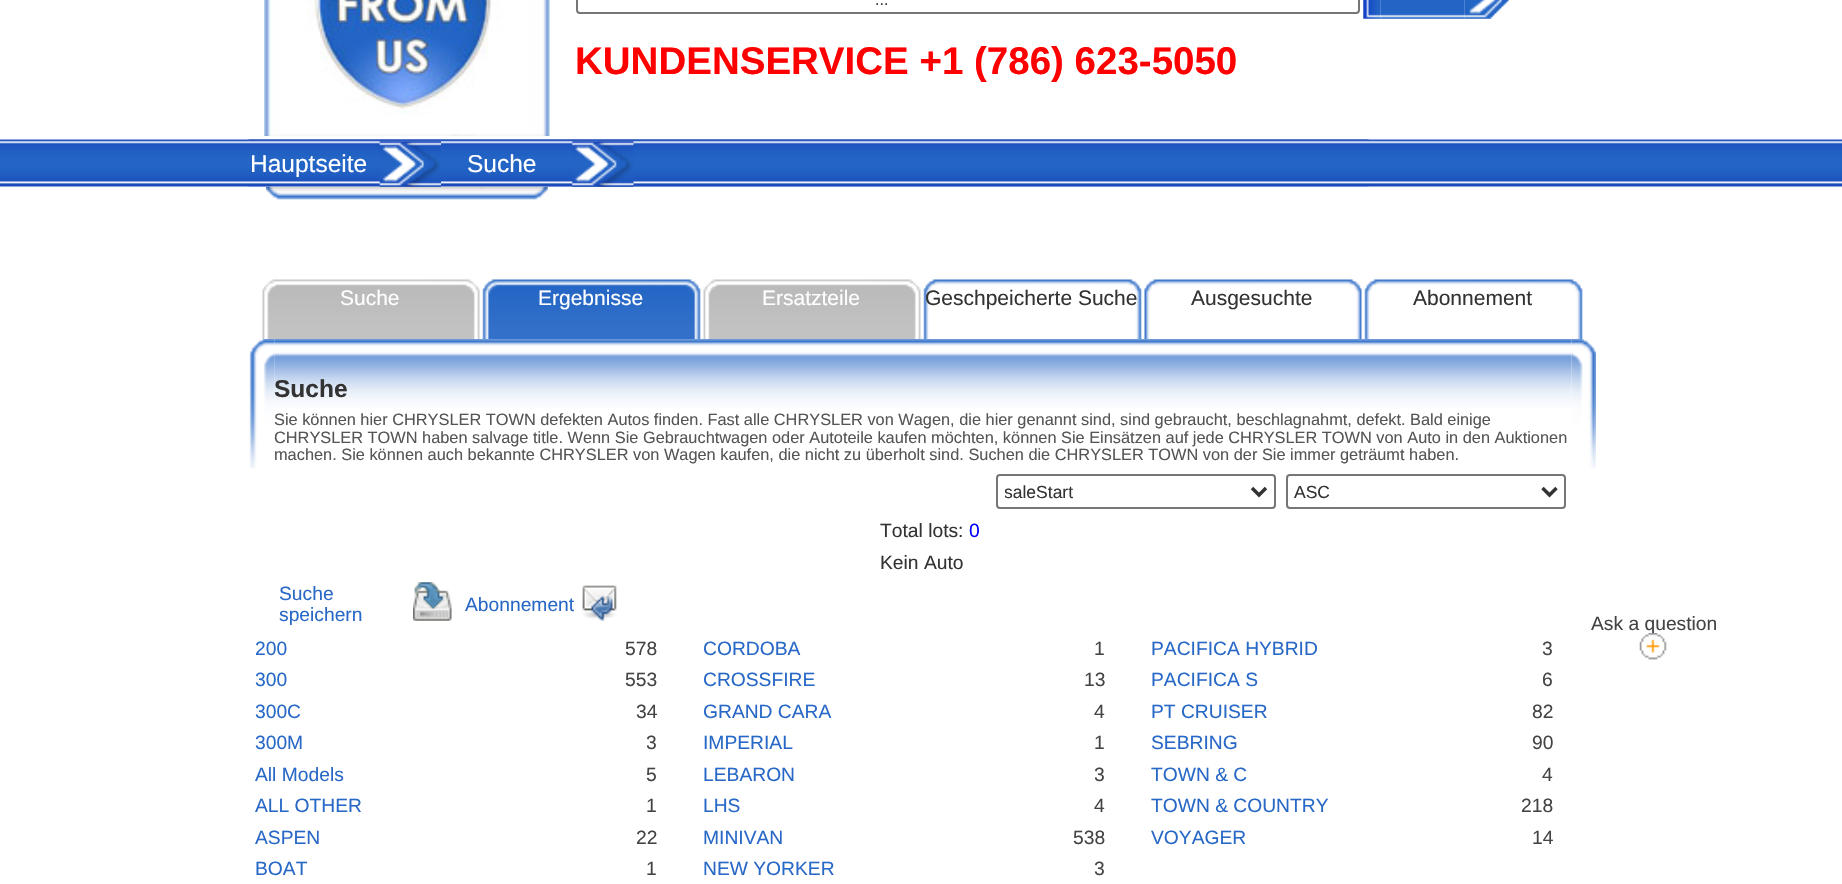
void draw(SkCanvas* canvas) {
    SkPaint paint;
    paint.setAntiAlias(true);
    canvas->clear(0xFFFFFFFF);
    canvas->drawImageRect(SkImages::DeferredFromEncodedData(SkData::MakeFromFileName("img1.png")), SkRect::MakeXYWH(264, 0, 286, 136), SkSamplingOptions());
    paint.setStyle(SkPaint::kStroke_Style);
    paint.setStrokeWidth(2);
    paint.setColor(0xFF767676);
    canvas->drawRoundRect(SkRect::MakeXYWH(577, -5, 782, 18), 3, 3, paint);
    SkFont font1(fontMgr->matchFamilyStyle("Liberation Sans", SkFontStyle::Normal()), 16);
    font1.setSubpixel(true);
    paint.setStyle(SkPaint::kFill_Style);
    paint.setColor(0xFF333333);
    canvas->drawString("...", 875, 5, font1, paint);
    canvas->drawImageRect(SkImages::DeferredFromEncodedData(SkData::MakeFromFileName("img2.png")), SkRect::MakeXYWH(1363, 0, 18, 19), SkSamplingOptions());
    canvas->drawImageRect(SkImages::DeferredFromEncodedData(SkData::MakeFromFileName("img3.png")), SkRect::MakeXYWH(1380, 0, 85, 19), SkSamplingOptions());
    canvas->drawImageRect(SkImages::DeferredFromEncodedData(SkData::MakeFromFileName("img4.png")), SkRect::MakeXYWH(1464, 0, 45, 19), SkSamplingOptions());
    SkFont font2(fontMgr->matchFamilyStyle("Liberation Sans", SkFontStyle::Bold()), 38.5f);
    font2.setSubpixel(true);
    paint.setColor(0xFFFF0000);
    canvas->drawString("KUNDENSERVICE +1 (786) 623-5050", 575, 74, font2, paint);
    canvas->drawImageRect(SkImages::DeferredFromEncodedData(SkData::MakeFromFileName("img5.png")), SkRect::MakeXYWH(0, 139, 1842, 48), SkSamplingOptions());
    canvas->drawImageRect(SkImages::DeferredFromEncodedData(SkData::MakeFromFileName("img6.png")), SkRect::MakeXYWH(248, 139, 1121, 48), SkSamplingOptions());
    canvas->drawImageRect(SkImages::DeferredFromEncodedData(SkData::MakeFromFileName("img9.png")), SkRect::MakeXYWH(266, 186, 282, 14), SkSamplingOptions());
    canvas->drawImageRect(SkImages::DeferredFromEncodedData(SkData::MakeFromFileName("img7.png")), SkRect::MakeXYWH(379, 141, 62, 46), SkSamplingOptions());
    SkFont font3(fontMgr->matchFamilyStyle("Liberation Sans", SkFontStyle::Normal()), 24.5f);
    font3.setSubpixel(true);
    paint.setColor(0xFFFFFFFF);
    canvas->drawString("Hauptseite", 250, 172, font3, paint);
    canvas->drawImageRect(SkImages::DeferredFromEncodedData(SkData::MakeFromFileName("img8.png")), SkRect::MakeXYWH(572, 141, 62, 46), SkSamplingOptions());
    canvas->drawString("Suche", 467, 172, font3, paint);
    canvas->drawImageRect(SkImages::DeferredFromEncodedData(SkData::MakeFromFileName("img10.png")), SkRect::MakeXYWH(262, 279, 218, 60), SkSamplingOptions());
    SkFont font4(fontMgr->matchFamilyStyle("Liberation Sans", SkFontStyle::Normal()), 21);
    font4.setSubpixel(true);
    canvas->drawString("Suche", 340, 305, font4, paint);
    canvas->drawImageRect(SkImages::DeferredFromEncodedData(SkData::MakeFromFileName("img11.png")), SkRect::MakeXYWH(482, 279, 219, 60), SkSamplingOptions());
    canvas->drawString("Ergebnisse", 538, 305, font4, paint);
    canvas->drawImageRect(SkImages::DeferredFromEncodedData(SkData::MakeFromFileName("img12.png")), SkRect::MakeXYWH(703, 279, 218, 60), SkSamplingOptions());
    canvas->drawString("Ersatzteile", 762, 305, font4, paint);
    canvas->drawImageRect(SkImages::DeferredFromEncodedData(SkData::MakeFromFileName("img13.png")), SkRect::MakeXYWH(923, 279, 219, 60), SkSamplingOptions());
    paint.setColor(0xFF333333);
    canvas->drawString("Geschpeicherte Suche", 925, 305, font4, paint);
    canvas->drawImageRect(SkImages::DeferredFromEncodedData(SkData::MakeFromFileName("img14.png")), SkRect::MakeXYWH(1144, 279, 218, 60), SkSamplingOptions());
    canvas->drawString("Ausgesuchte", 1191, 305, font4, paint);
    canvas->drawImageRect(SkImages::DeferredFromEncodedData(SkData::MakeFromFileName("img13.png")), SkRect::MakeXYWH(1364, 279, 219, 60), SkSamplingOptions());
    canvas->drawString("Abonnement", 1413, 305, font4, paint);
    canvas->drawImageRect(SkImages::DeferredFromEncodedData(SkData::MakeFromFileName("img15.png")), SkRect::MakeXYWH(249, 339, 26, 130), SkSamplingOptions());
    canvas->drawImageRect(SkImages::DeferredFromEncodedData(SkData::MakeFromFileName("img16.png")), SkRect::MakeXYWH(274, 339, 1298, 69), SkSamplingOptions());
    SkFont font5(fontMgr->matchFamilyStyle("Liberation Sans", SkFontStyle::Bold()), 24.5f);
    font5.setSubpixel(true);
    canvas->drawString("Suche", 274, 397, font5, paint);
    SkFont font6(fontMgr->matchFamilyStyle("Liberation Sans", SkFontStyle::Normal()), 16.35f);
    font6.setSubpixel(true);
    paint.setColor(0xFF555555);
    canvas->drawString("Sie können hier CHRYSLER TOWN defekten Autos finden. Fast alle CHRYSLER von Wagen, die hier genannt sind, sind gebraucht, beschlagnahmt, defekt. Bald einige", 274, 425, font6, paint);
    canvas->drawString("CHRYSLER TOWN haben salvage title. Wenn Sie Gebrauchtwagen oder Autoteile kaufen möchten, können Sie Einsätzen auf jede CHRYSLER TOWN von Auto in den Auktionen", 274, 443, font6, paint);
    canvas->drawString("machen. Sie können auch bekannte CHRYSLER von Wagen kaufen, die nicht zu überholt sind. Suchen die CHRYSLER TOWN von der Sie immer geträumt haben.", 274, 460, font6, paint);
    canvas->drawImageRect(SkImages::DeferredFromEncodedData(SkData::MakeFromFileName("img17.png")), SkRect::MakeXYWH(1571, 339, 25, 130), SkSamplingOptions());
    paint.setStyle(SkPaint::kStroke_Style);
    paint.setColor(0xFF767676);
    canvas->drawRoundRect(SkRect::MakeXYWH(997, 475, 278, 33), 3, 3, paint);
    paint.setStrokeWidth(3.5f);
    paint.setColor(0xFF333333);
    canvas->drawPath(SkPathBuilder().moveTo(1252, 488).lineTo(1259, 495).lineTo(1266, 488).detach(), paint);
    canvas->save();
    canvas->clipRect(SkRect::MakeXYWH(1005, 481, 241, 23));
    SkFont font7(fontMgr->matchFamilyStyle("Liberation Sans", SkFontStyle::Normal()), 17.5f);
    font7.setSubpixel(true);
    paint.setStyle(SkPaint::kFill_Style);
    canvas->drawString("saleStart", 1004, 498, font7, paint);
    canvas->restore();
    paint.setStyle(SkPaint::kStroke_Style);
    paint.setStrokeWidth(2);
    paint.setColor(0xFF767676);
    canvas->drawRoundRect(SkRect::MakeXYWH(1287, 475, 278, 33), 3, 3, paint);
    paint.setStrokeWidth(3.5f);
    paint.setColor(0xFF333333);
    canvas->drawPath(SkPathBuilder().moveTo(1542.5f, 488).lineTo(1549.5f, 495).lineTo(1556.5f, 488).detach(), paint);
    paint.setStyle(SkPaint::kFill_Style);
    canvas->drawString("ASC", 1294, 498, font7, paint);
    SkFont font8(fontMgr->matchFamilyStyle("Liberation Sans", SkFontStyle::Normal()), 19.25f);
    font8.setSubpixel(true);
    canvas->drawString("Total lots:", 880, 537, font8, paint);
    paint.setColor(0xFF0000FF);
    canvas->drawString("0", 969, 537, font8, paint);
    paint.setColor(0xFF333333);
    canvas->drawString("Kein Auto", 880, 569, font8, paint);
    paint.setColor(0xFF2868C6);
    canvas->drawString("Suche", 279, 600, font8, paint);
    canvas->drawString("speichern", 279, 621, font8, paint);
    canvas->drawImageRect(SkImages::DeferredFromEncodedData(SkData::MakeFromFileName("img18.png")), SkRect::MakeXYWH(413, 582, 39, 39), SkSamplingOptions());
    canvas->drawString("Abonnement", 465, 611, font8, paint);
    canvas->drawImageRect(SkImages::DeferredFromEncodedData(SkData::MakeFromFileName("img19.png")), SkRect::MakeXYWH(582, 585, 35, 36), SkSamplingOptions());
    canvas->drawString("200", 255, 655, font8, paint);
    paint.setColor(0xFF444444);
    canvas->drawString("578", 625, 655, font8, paint);
    paint.setColor(0xFF2868C6);
    canvas->drawString("CORDOBA", 703, 655, font8, paint);
    paint.setColor(0xFF444444);
    canvas->drawString("1", 1094, 655, font8, paint);
    paint.setColor(0xFF2868C6);
    canvas->drawString("PACIFICA HYBRID", 1151, 655, font8, paint);
    paint.setColor(0xFF444444);
    canvas->drawString("3", 1542, 655, font8, paint);
    paint.setColor(0xFF2868C6);
    canvas->drawString("300", 255, 686, font8, paint);
    paint.setColor(0xFF444444);
    canvas->drawString("553", 625, 686, font8, paint);
    paint.setColor(0xFF2868C6);
    canvas->drawString("CROSSFIRE", 703, 686, font8, paint);
    paint.setColor(0xFF444444);
    canvas->drawString("13", 1084, 686, font8, paint);
    paint.setColor(0xFF2868C6);
    canvas->drawString("PACIFICA S", 1151, 686, font8, paint);
    paint.setColor(0xFF444444);
    canvas->drawString("6", 1542, 686, font8, paint);
    paint.setColor(0xFF2868C6);
    canvas->drawString("300C", 255, 718, font8, paint);
    paint.setColor(0xFF444444);
    canvas->drawString("34", 636, 718, font8, paint);
    paint.setColor(0xFF2868C6);
    canvas->drawString("GRAND CARA", 703, 718, font8, paint);
    paint.setColor(0xFF444444);
    canvas->drawString("4", 1094, 718, font8, paint);
    paint.setColor(0xFF2868C6);
    canvas->drawString("PT CRUISER", 1151, 718, font8, paint);
    paint.setColor(0xFF444444);
    canvas->drawString("82", 1532, 718, font8, paint);
    paint.setColor(0xFF2868C6);
    canvas->drawString("300M", 255, 749, font8, paint);
    paint.setColor(0xFF444444);
    canvas->drawString("3", 646, 749, font8, paint);
    paint.setColor(0xFF2868C6);
    canvas->drawString("IMPERIAL", 703, 749, font8, paint);
    paint.setColor(0xFF444444);
    canvas->drawString("1", 1094, 749, font8, paint);
    paint.setColor(0xFF2868C6);
    canvas->drawString("SEBRING", 1151, 749, font8, paint);
    paint.setColor(0xFF444444);
    canvas->drawString("90", 1532, 749, font8, paint);
    paint.setColor(0xFF2868C6);
    canvas->drawString("All Models", 255, 781, font8, paint);
    paint.setColor(0xFF444444);
    canvas->drawString("5", 646, 781, font8, paint);
    paint.setColor(0xFF2868C6);
    canvas->drawString("LEBARON", 703, 781, font8, paint);
    paint.setColor(0xFF444444);
    canvas->drawString("3", 1094, 781, font8, paint);
    paint.setColor(0xFF2868C6);
    canvas->drawString("TOWN & C", 1151, 781, font8, paint);
    paint.setColor(0xFF444444);
    canvas->drawString("4", 1542, 781, font8, paint);
    paint.setColor(0xFF2868C6);
    canvas->drawString("ALL OTHER", 255, 812, font8, paint);
    paint.setColor(0xFF444444);
    canvas->drawString("1", 646, 812, font8, paint);
    paint.setColor(0xFF2868C6);
    canvas->drawString("LHS", 703, 812, font8, paint);
    paint.setColor(0xFF444444);
    canvas->drawString("4", 1094, 812, font8, paint);
    paint.setColor(0xFF2868C6);
    canvas->drawString("TOWN & COUNTRY", 1151, 812, font8, paint);
    paint.setColor(0xFF444444);
    canvas->drawString("218", 1521, 812, font8, paint);
    paint.setColor(0xFF2868C6);
    canvas->drawString("ASPEN", 255, 844, font8, paint);
    paint.setColor(0xFF444444);
    canvas->drawString("22", 636, 844, font8, paint);
    paint.setColor(0xFF2868C6);
    canvas->drawString("MINIVAN", 703, 844, font8, paint);
    paint.setColor(0xFF444444);
    canvas->drawString("538", 1073, 844, font8, paint);
    paint.setColor(0xFF2868C6);
    canvas->drawString("VOYAGER", 1151, 844, font8, paint);
    paint.setColor(0xFF444444);
    canvas->drawString("14", 1532, 844, font8, paint);
    paint.setColor(0xFF2868C6);
    canvas->drawString("BOAT", 255, 875, font8, paint);
    paint.setColor(0xFF444444);
    canvas->drawString("1", 646, 875, font8, paint);
    paint.setColor(0xFF2868C6);
    canvas->drawString("NEW YORKER", 703, 875, font8, paint);
    paint.setColor(0xFF444444);
    canvas->drawString("3", 1094, 875, font8, paint);
    canvas->drawString("Ask a question", 1591, 630, font8, paint);
    canvas->drawImageRect(SkImages::DeferredFromEncodedData(SkData::MakeFromFileName("img20.png")), SkRect::MakeXYWH(1639, 633, 28, 27), SkSamplingOptions());
}
